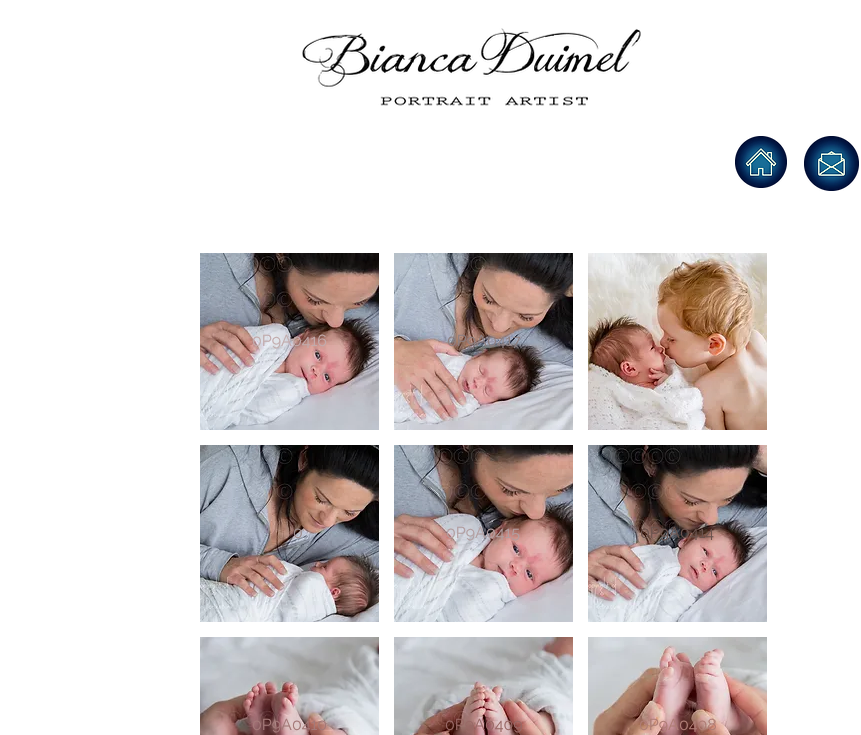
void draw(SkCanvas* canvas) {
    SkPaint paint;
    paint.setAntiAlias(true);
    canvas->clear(0xFFFFFFFF);
    canvas->drawImageRect(SkImages::DeferredFromEncodedData(SkData::MakeFromFileName("img1.png")), SkRect::MakeXYWH(302, 28, 339, 78), SkSamplingOptions());
    canvas->drawImageRect(SkImages::DeferredFromEncodedData(SkData::MakeFromFileName("img2.png")), SkRect::MakeXYWH(735, 136, 52, 52), SkSamplingOptions());
    canvas->drawImageRect(SkImages::DeferredFromEncodedData(SkData::MakeFromFileName("img3.png")), SkRect::MakeXYWH(804, 136, 55, 55), SkSamplingOptions());
    canvas->drawImageRect(SkImages::DeferredFromEncodedData(SkData::MakeFromFileName("img4.png")), SkRect::MakeXYWH(200, 253, 179, 177), SkSamplingOptions());
    SkFont font1(fontMgr->matchFamilyStyle("Raleway", SkFontStyle::Normal()), 16);
    font1.setSubpixel(true);
    paint.setColor(0xFFC2ABAC);
    canvas->drawString("0P9A0416", 252, 346, font1, paint);
    canvas->drawImageRect(SkImages::DeferredFromEncodedData(SkData::MakeFromFileName("img5.png")), SkRect::MakeXYWH(394, 253, 179, 177), SkSamplingOptions());
    paint.setColor(0xFF8D7F81);
    canvas->drawString("0P9A0417", 447, 346, font1, paint);
    canvas->drawImageRect(SkImages::DeferredFromEncodedData(SkData::MakeFromFileName("img6.png")), SkRect::MakeXYWH(588, 253, 179, 177), SkSamplingOptions());
    canvas->drawImageRect(SkImages::DeferredFromEncodedData(SkData::MakeFromFileName("img7.png")), SkRect::MakeXYWH(200, 445, 179, 177), SkSamplingOptions());
    paint.setColor(0xFF9D8C8D);
    canvas->drawString("0", 293, 538, font1, paint);
    canvas->drawImageRect(SkImages::DeferredFromEncodedData(SkData::MakeFromFileName("img8.png")), SkRect::MakeXYWH(394, 445, 179, 177), SkSamplingOptions());
    paint.setColor(0xFFB29EA0);
    canvas->drawString("0P9A0415", 446, 538, font1, paint);
    canvas->drawImageRect(SkImages::DeferredFromEncodedData(SkData::MakeFromFileName("img9.png")), SkRect::MakeXYWH(588, 445, 179, 177), SkSamplingOptions());
    paint.setColor(0xFF6B534E);
    canvas->drawString("0P9A0414", 640, 538, font1, paint);
    canvas->drawImageRect(SkImages::DeferredFromEncodedData(SkData::MakeFromFileName("img10.png")), SkRect::MakeXYWH(200, 637, 179, 98), SkSamplingOptions());
    paint.setColor(0xFFA47978);
    canvas->drawString("0P9A0410", 252, 730, font1, paint);
    canvas->drawImageRect(SkImages::DeferredFromEncodedData(SkData::MakeFromFileName("img11.png")), SkRect::MakeXYWH(394, 637, 179, 98), SkSamplingOptions());
    paint.setColor(0xFF996966);
    canvas->drawString("0P9A0409", 445, 730, font1, paint);
    canvas->drawImageRect(SkImages::DeferredFromEncodedData(SkData::MakeFromFileName("img12.png")), SkRect::MakeXYWH(588, 637, 179, 98), SkSamplingOptions());
    paint.setColor(0xFFAF7D75);
    canvas->drawString("0P9A0408", 639, 730, font1, paint);
}
